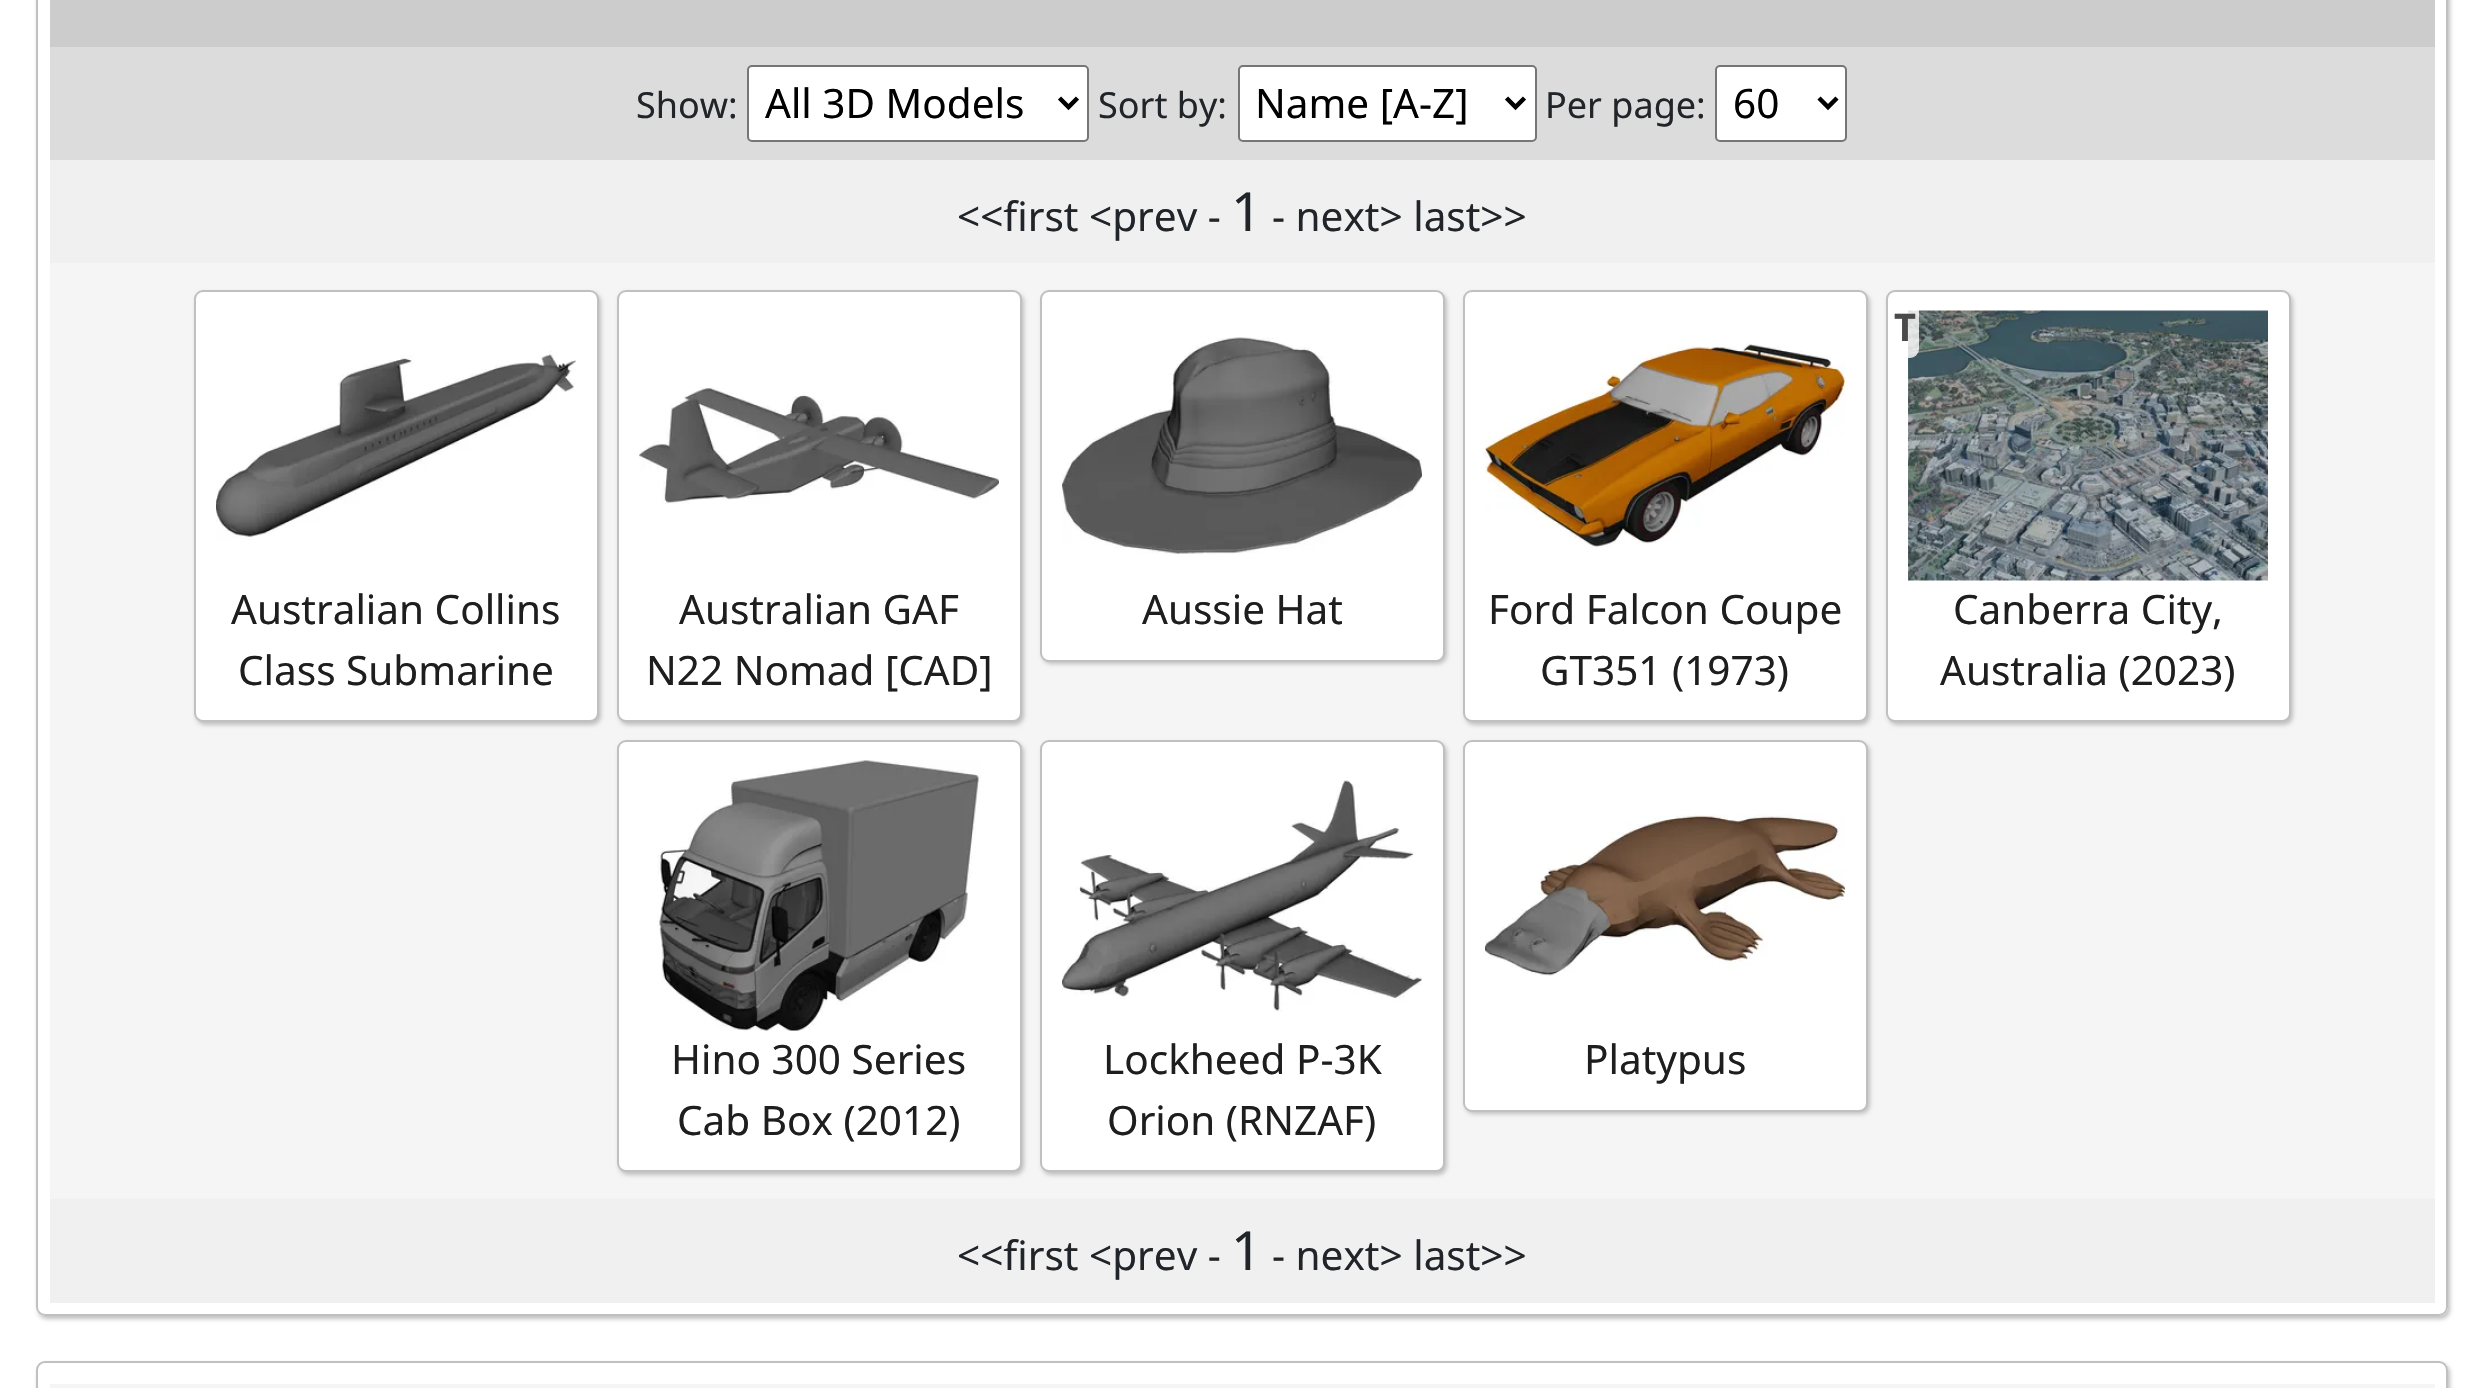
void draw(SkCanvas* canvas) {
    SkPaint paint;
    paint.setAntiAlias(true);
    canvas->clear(0xFFFFFFFF);
    canvas->save();
    canvas->clipPath(SkPathBuilder(SkPathFillType::kEvenOdd).moveTo(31, 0).lineTo(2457, 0).lineTo(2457, 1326).lineTo(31, 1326).close().moveTo(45, -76).lineTo(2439, -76).cubicTo(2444, -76, 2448, -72, 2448, -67).lineTo(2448, 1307).cubicTo(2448, 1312, 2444, 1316, 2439, 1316).lineTo(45, 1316).cubicTo(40, 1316, 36, 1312, 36, 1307).lineTo(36, -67).cubicTo(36, -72, 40, -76, 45, -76).close().detach(), true);
    paint.setColor(0xFFC0C0C0);
    paint.setMaskFilter(SkMaskFilter::MakeBlur(kNormal_SkBlurStyle, 2));
    canvas->drawRoundRect(SkRect::MakeXYWH(38, -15, 2412, 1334), 9, 9, paint);
    paint.setMaskFilter(nullptr);
    canvas->restore();
    paint.setStyle(SkPaint::kStroke_Style);
    paint.setStrokeWidth(2);
    canvas->drawRoundRect(SkRect::MakeXYWH(37, -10, 2410, 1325), 8, 8, paint);
    paint.setStyle(SkPaint::kFill_Style);
    paint.setColor(0xFFCCCCCC);
    canvas->drawRect(SkRect::MakeXYWH(50, 0, 2385, 47), paint);
    paint.setColor(0xFFDCDCDC);
    canvas->drawRect(SkRect::MakeXYWH(50, 47, 2385, 113), paint);
    SkFont font1(fontMgr->matchFamilyStyle("Noto Sans", SkFontStyle::Normal()), 36);
    font1.setSubpixel(true);
    paint.setColor(0xFF212529);
    canvas->drawString("Show:", 636, 118, font1, paint);
    paint.setColor(0xFFFFFFFF);
    canvas->drawRoundRect(SkRect::MakeXYWH(748, 66, 340, 75), 4, 4, paint);
    paint.setStyle(SkPaint::kStroke_Style);
    paint.setColor(0xFF767676);
    canvas->drawRoundRect(SkRect::MakeXYWH(748, 66, 340, 75), 4, 4, paint);
    paint.setStrokeWidth(4.5f);
    paint.setColor(0xFF000000);
    canvas->drawPath(SkPathBuilder().moveTo(1059.5f, 98).lineTo(1068.5f, 107).lineTo(1077.5f, 98).detach(), paint);
    SkFont font2(fontMgr->matchFamilyStyle("Noto Sans", SkFontStyle::Normal()), 40.5f);
    font2.setSubpixel(true);
    paint.setStyle(SkPaint::kFill_Style);
    canvas->drawString("All 3D Models", 765, 118, font2, paint);
    paint.setColor(0xFF212529);
    canvas->drawString("Sort by:", 1098, 118, font1, paint);
    paint.setColor(0xFFFFFFFF);
    canvas->drawRoundRect(SkRect::MakeXYWH(1239, 66, 297, 75), 4, 4, paint);
    paint.setStyle(SkPaint::kStroke_Style);
    paint.setStrokeWidth(2);
    paint.setColor(0xFF767676);
    canvas->drawRoundRect(SkRect::MakeXYWH(1239, 66, 297, 75), 4, 4, paint);
    paint.setStrokeWidth(4.5f);
    paint.setColor(0xFF000000);
    canvas->drawPath(SkPathBuilder().moveTo(1506.5f, 98).lineTo(1515.5f, 107).lineTo(1524.5f, 98).detach(), paint);
    paint.setStyle(SkPaint::kFill_Style);
    canvas->drawString("Name [A-Z]", 1255, 118, font2, paint);
    paint.setColor(0xFF212529);
    canvas->drawString("Per page:", 1545, 118, font1, paint);
    paint.setColor(0xFFFFFFFF);
    canvas->drawRoundRect(SkRect::MakeXYWH(1716, 66, 130, 75), 4, 4, paint);
    paint.setStyle(SkPaint::kStroke_Style);
    paint.setStrokeWidth(2);
    paint.setColor(0xFF767676);
    canvas->drawRoundRect(SkRect::MakeXYWH(1716, 66, 130, 75), 4, 4, paint);
    paint.setStrokeWidth(4.5f);
    paint.setColor(0xFF000000);
    canvas->drawPath(SkPathBuilder().moveTo(1819, 98).lineTo(1828, 107).lineTo(1837, 98).detach(), paint);
    paint.setStyle(SkPaint::kFill_Style);
    canvas->drawString("60", 1733, 118, font2, paint);
    paint.setColor(0xFFF0F0F0);
    canvas->drawRect(SkRect::MakeXYWH(50, 160, 2385, 103), paint);
    paint.setColor(0xFF212529);
    canvas->drawString("<<first <prev -", 957, 231, font2, paint);
    SkFont font3(fontMgr->matchFamilyStyle("Noto Sans", SkFontStyle::Normal()), 54);
    font3.setSubpixel(true);
    canvas->drawString("1", 1231, 231, font3, paint);
    canvas->drawString("- next> last>>", 1272, 231, font2, paint);
    paint.setColor(0xFFF5F5F5);
    canvas->drawRect(SkRect::MakeXYWH(50, 263, 2385, 936), paint);
    paint.setColor(0xFFC0C0C0);
    paint.setMaskFilter(SkMaskFilter::MakeBlur(kNormal_SkBlurStyle, 2));
    canvas->drawRoundRect(SkRect::MakeXYWH(196, 293, 405, 432), 9, 9, paint);
    paint.setMaskFilter(nullptr);
    paint.setColor(0xFFFFFFFF);
    canvas->drawRoundRect(SkRect::MakeXYWH(195, 291, 403, 430), 8, 8, paint);
    paint.setStyle(SkPaint::kStroke_Style);
    paint.setStrokeWidth(2);
    paint.setColor(0xFFC0C0C0);
    canvas->drawRoundRect(SkRect::MakeXYWH(195, 291, 403, 430), 8, 8, paint);
    canvas->drawImageRect(SkImages::DeferredFromEncodedData(SkData::MakeFromFileName("img1.png")), SkRect::MakeXYWH(216, 351, 360, 189), SkSamplingOptions());
    paint.setStyle(SkPaint::kFill_Style);
    paint.setColor(0xFF1E1E1E);
    canvas->drawString("Australian Collins", 231, 624, font2, paint);
    canvas->drawString("Class Submarine", 238, 685, font2, paint);
    paint.setColor(0xFFC0C0C0);
    paint.setMaskFilter(SkMaskFilter::MakeBlur(kNormal_SkBlurStyle, 2));
    canvas->drawRoundRect(SkRect::MakeXYWH(619, 293, 405, 432), 9, 9, paint);
    paint.setMaskFilter(nullptr);
    paint.setColor(0xFFFFFFFF);
    canvas->drawRoundRect(SkRect::MakeXYWH(618, 291, 403, 430), 8, 8, paint);
    paint.setStyle(SkPaint::kStroke_Style);
    paint.setColor(0xFFC0C0C0);
    canvas->drawRoundRect(SkRect::MakeXYWH(618, 291, 403, 430), 8, 8, paint);
    canvas->drawImageRect(SkImages::DeferredFromEncodedData(SkData::MakeFromFileName("img2.png")), SkRect::MakeXYWH(639, 387, 360, 117), SkSamplingOptions());
    paint.setStyle(SkPaint::kFill_Style);
    paint.setColor(0xFF1E1E1E);
    canvas->drawString("Australian GAF", 679, 624, font2, paint);
    canvas->drawString("N22 Nomad [CAD]", 646, 685, font2, paint);
    paint.setColor(0xFFC0C0C0);
    paint.setMaskFilter(SkMaskFilter::MakeBlur(kNormal_SkBlurStyle, 2));
    canvas->drawRoundRect(SkRect::MakeXYWH(1042, 293, 405, 371), 9, 9, paint);
    paint.setMaskFilter(nullptr);
    paint.setColor(0xFFFFFFFF);
    canvas->drawRoundRect(SkRect::MakeXYWH(1041, 291, 403, 370), 8, 8, paint);
    paint.setStyle(SkPaint::kStroke_Style);
    paint.setColor(0xFFC0C0C0);
    canvas->drawRoundRect(SkRect::MakeXYWH(1041, 291, 403, 370), 8, 8, paint);
    canvas->drawImageRect(SkImages::DeferredFromEncodedData(SkData::MakeFromFileName("img3.png")), SkRect::MakeXYWH(1062, 337, 360, 217), SkSamplingOptions());
    paint.setStyle(SkPaint::kFill_Style);
    paint.setColor(0xFF1E1E1E);
    canvas->drawString("Aussie Hat", 1142, 624, font2, paint);
    paint.setColor(0xFFC0C0C0);
    paint.setMaskFilter(SkMaskFilter::MakeBlur(kNormal_SkBlurStyle, 2));
    canvas->drawRoundRect(SkRect::MakeXYWH(1465, 293, 405, 432), 9, 9, paint);
    paint.setMaskFilter(nullptr);
    paint.setColor(0xFFFFFFFF);
    canvas->drawRoundRect(SkRect::MakeXYWH(1464, 291, 403, 430), 8, 8, paint);
    paint.setStyle(SkPaint::kStroke_Style);
    paint.setColor(0xFFC0C0C0);
    canvas->drawRoundRect(SkRect::MakeXYWH(1464, 291, 403, 430), 8, 8, paint);
    canvas->drawImageRect(SkImages::DeferredFromEncodedData(SkData::MakeFromFileName("img4.png")), SkRect::MakeXYWH(1485, 342, 360, 207), SkSamplingOptions());
    paint.setStyle(SkPaint::kFill_Style);
    paint.setColor(0xFF1E1E1E);
    canvas->drawString("Ford Falcon Coupe", 1488, 624, font2, paint);
    canvas->drawString("GT351 (1973)", 1540, 685, font2, paint);
    paint.setColor(0xFFC0C0C0);
    paint.setMaskFilter(SkMaskFilter::MakeBlur(kNormal_SkBlurStyle, 2));
    canvas->drawRoundRect(SkRect::MakeXYWH(1888, 293, 405, 432), 9, 9, paint);
    paint.setMaskFilter(nullptr);
    paint.setColor(0xFFFFFFFF);
    canvas->drawRoundRect(SkRect::MakeXYWH(1887, 291, 403, 430), 8, 8, paint);
    paint.setStyle(SkPaint::kStroke_Style);
    paint.setColor(0xFFC0C0C0);
    canvas->drawRoundRect(SkRect::MakeXYWH(1887, 291, 403, 430), 8, 8, paint);
    canvas->drawImageRect(SkImages::DeferredFromEncodedData(SkData::MakeFromFileName("img5.png")), SkRect::MakeXYWH(1908, 310, 360, 271), SkSamplingOptions());
    paint.setStyle(SkPaint::kFill_Style);
    paint.setColor(0xCCFFFFFF);
    canvas->drawRoundRect(SkRect::MakeXYWH(1892, 297, 27, 61), 9, 9, paint);
    SkFont font4(fontMgr->matchFamilyStyle("Noto Sans", SkFontStyle::Bold()), 38);
    font4.setSubpixel(true);
    paint.setColor(0xFF4A4A4A);
    canvas->drawString("T", 1894, 341, font4, paint);
    paint.setColor(0xFF1E1E1E);
    canvas->drawString("Canberra City,", 1953, 624, font2, paint);
    canvas->drawString("Australia (2023)", 1940, 685, font2, paint);
    paint.setColor(0xFFC0C0C0);
    paint.setMaskFilter(SkMaskFilter::MakeBlur(kNormal_SkBlurStyle, 2));
    canvas->drawRoundRect(SkRect::MakeXYWH(619, 743, 405, 432), 9, 9, paint);
    paint.setMaskFilter(nullptr);
    paint.setColor(0xFFFFFFFF);
    canvas->drawRoundRect(SkRect::MakeXYWH(618, 741, 403, 430), 8, 8, paint);
    paint.setStyle(SkPaint::kStroke_Style);
    paint.setColor(0xFFC0C0C0);
    canvas->drawRoundRect(SkRect::MakeXYWH(618, 741, 403, 430), 8, 8, paint);
    canvas->drawImageRect(SkImages::DeferredFromEncodedData(SkData::MakeFromFileName("img6.png")), SkRect::MakeXYWH(657, 760, 324, 271), SkSamplingOptions());
    paint.setStyle(SkPaint::kFill_Style);
    paint.setColor(0xFF1E1E1E);
    canvas->drawString("Hino 300 Series", 671, 1074, font2, paint);
    canvas->drawString("Cab Box (2012)", 677, 1135, font2, paint);
    paint.setColor(0xFFC0C0C0);
    paint.setMaskFilter(SkMaskFilter::MakeBlur(kNormal_SkBlurStyle, 2));
    canvas->drawRoundRect(SkRect::MakeXYWH(1042, 743, 405, 432), 9, 9, paint);
    paint.setMaskFilter(nullptr);
    paint.setColor(0xFFFFFFFF);
    canvas->drawRoundRect(SkRect::MakeXYWH(1041, 741, 403, 430), 8, 8, paint);
    paint.setStyle(SkPaint::kStroke_Style);
    paint.setColor(0xFFC0C0C0);
    canvas->drawRoundRect(SkRect::MakeXYWH(1041, 741, 403, 430), 8, 8, paint);
    canvas->drawImageRect(SkImages::DeferredFromEncodedData(SkData::MakeFromFileName("img7.png")), SkRect::MakeXYWH(1062, 780, 360, 232), SkSamplingOptions());
    paint.setStyle(SkPaint::kFill_Style);
    paint.setColor(0xFF1E1E1E);
    canvas->drawString("Lockheed P-3K", 1103, 1074, font2, paint);
    canvas->drawString("Orion (RNZAF)", 1107, 1135, font2, paint);
    paint.setColor(0xFFC0C0C0);
    paint.setMaskFilter(SkMaskFilter::MakeBlur(kNormal_SkBlurStyle, 2));
    canvas->drawRoundRect(SkRect::MakeXYWH(1465, 743, 405, 371), 9, 9, paint);
    paint.setMaskFilter(nullptr);
    paint.setColor(0xFFFFFFFF);
    canvas->drawRoundRect(SkRect::MakeXYWH(1464, 741, 403, 370), 8, 8, paint);
    paint.setStyle(SkPaint::kStroke_Style);
    paint.setColor(0xFFC0C0C0);
    canvas->drawRoundRect(SkRect::MakeXYWH(1464, 741, 403, 370), 8, 8, paint);
    canvas->drawImageRect(SkImages::DeferredFromEncodedData(SkData::MakeFromFileName("img8.png")), SkRect::MakeXYWH(1485, 814, 360, 162), SkSamplingOptions());
    paint.setStyle(SkPaint::kFill_Style);
    paint.setColor(0xFF1E1E1E);
    canvas->drawString("Platypus", 1584, 1074, font2, paint);
    paint.setColor(0xFFF0F0F0);
    canvas->drawRect(SkRect::MakeXYWH(50, 1199, 2385, 104), paint);
    paint.setColor(0xFF212529);
    canvas->drawString("<<first <prev -", 957, 1270, font2, paint);
    canvas->drawString("1", 1231, 1270, font3, paint);
    canvas->drawString("- next> last>>", 1272, 1270, font2, paint);
    canvas->save();
    canvas->clipPath(SkPathBuilder(SkPathFillType::kEvenOdd).moveTo(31, 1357).lineTo(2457, 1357).lineTo(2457, 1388).lineTo(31, 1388).close().moveTo(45, 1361).lineTo(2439, 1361).cubicTo(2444, 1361, 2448, 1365, 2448, 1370).lineTo(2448, 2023).cubicTo(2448, 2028, 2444, 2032, 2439, 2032).lineTo(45, 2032).cubicTo(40, 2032, 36, 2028, 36, 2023).lineTo(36, 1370).cubicTo(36, 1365, 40, 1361, 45, 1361).close().detach(), true);
    paint.setColor(0xFFC0C0C0);
    paint.setMaskFilter(SkMaskFilter::MakeBlur(kNormal_SkBlurStyle, 2));
    canvas->drawRoundRect(SkRect::MakeXYWH(38, 1364, 2412, 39), 9, 9, paint);
    paint.setMaskFilter(nullptr);
    canvas->restore();
    paint.setStyle(SkPaint::kStroke_Style);
    canvas->drawRoundRect(SkRect::MakeXYWH(37, 1362, 2410, 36), 8, 8, paint);
    paint.setStyle(SkPaint::kFill_Style);
    paint.setColor(0xFFF5F5F5);
    canvas->drawRect(SkRect::MakeXYWH(50, 1384, 2385, 4), paint);
}
